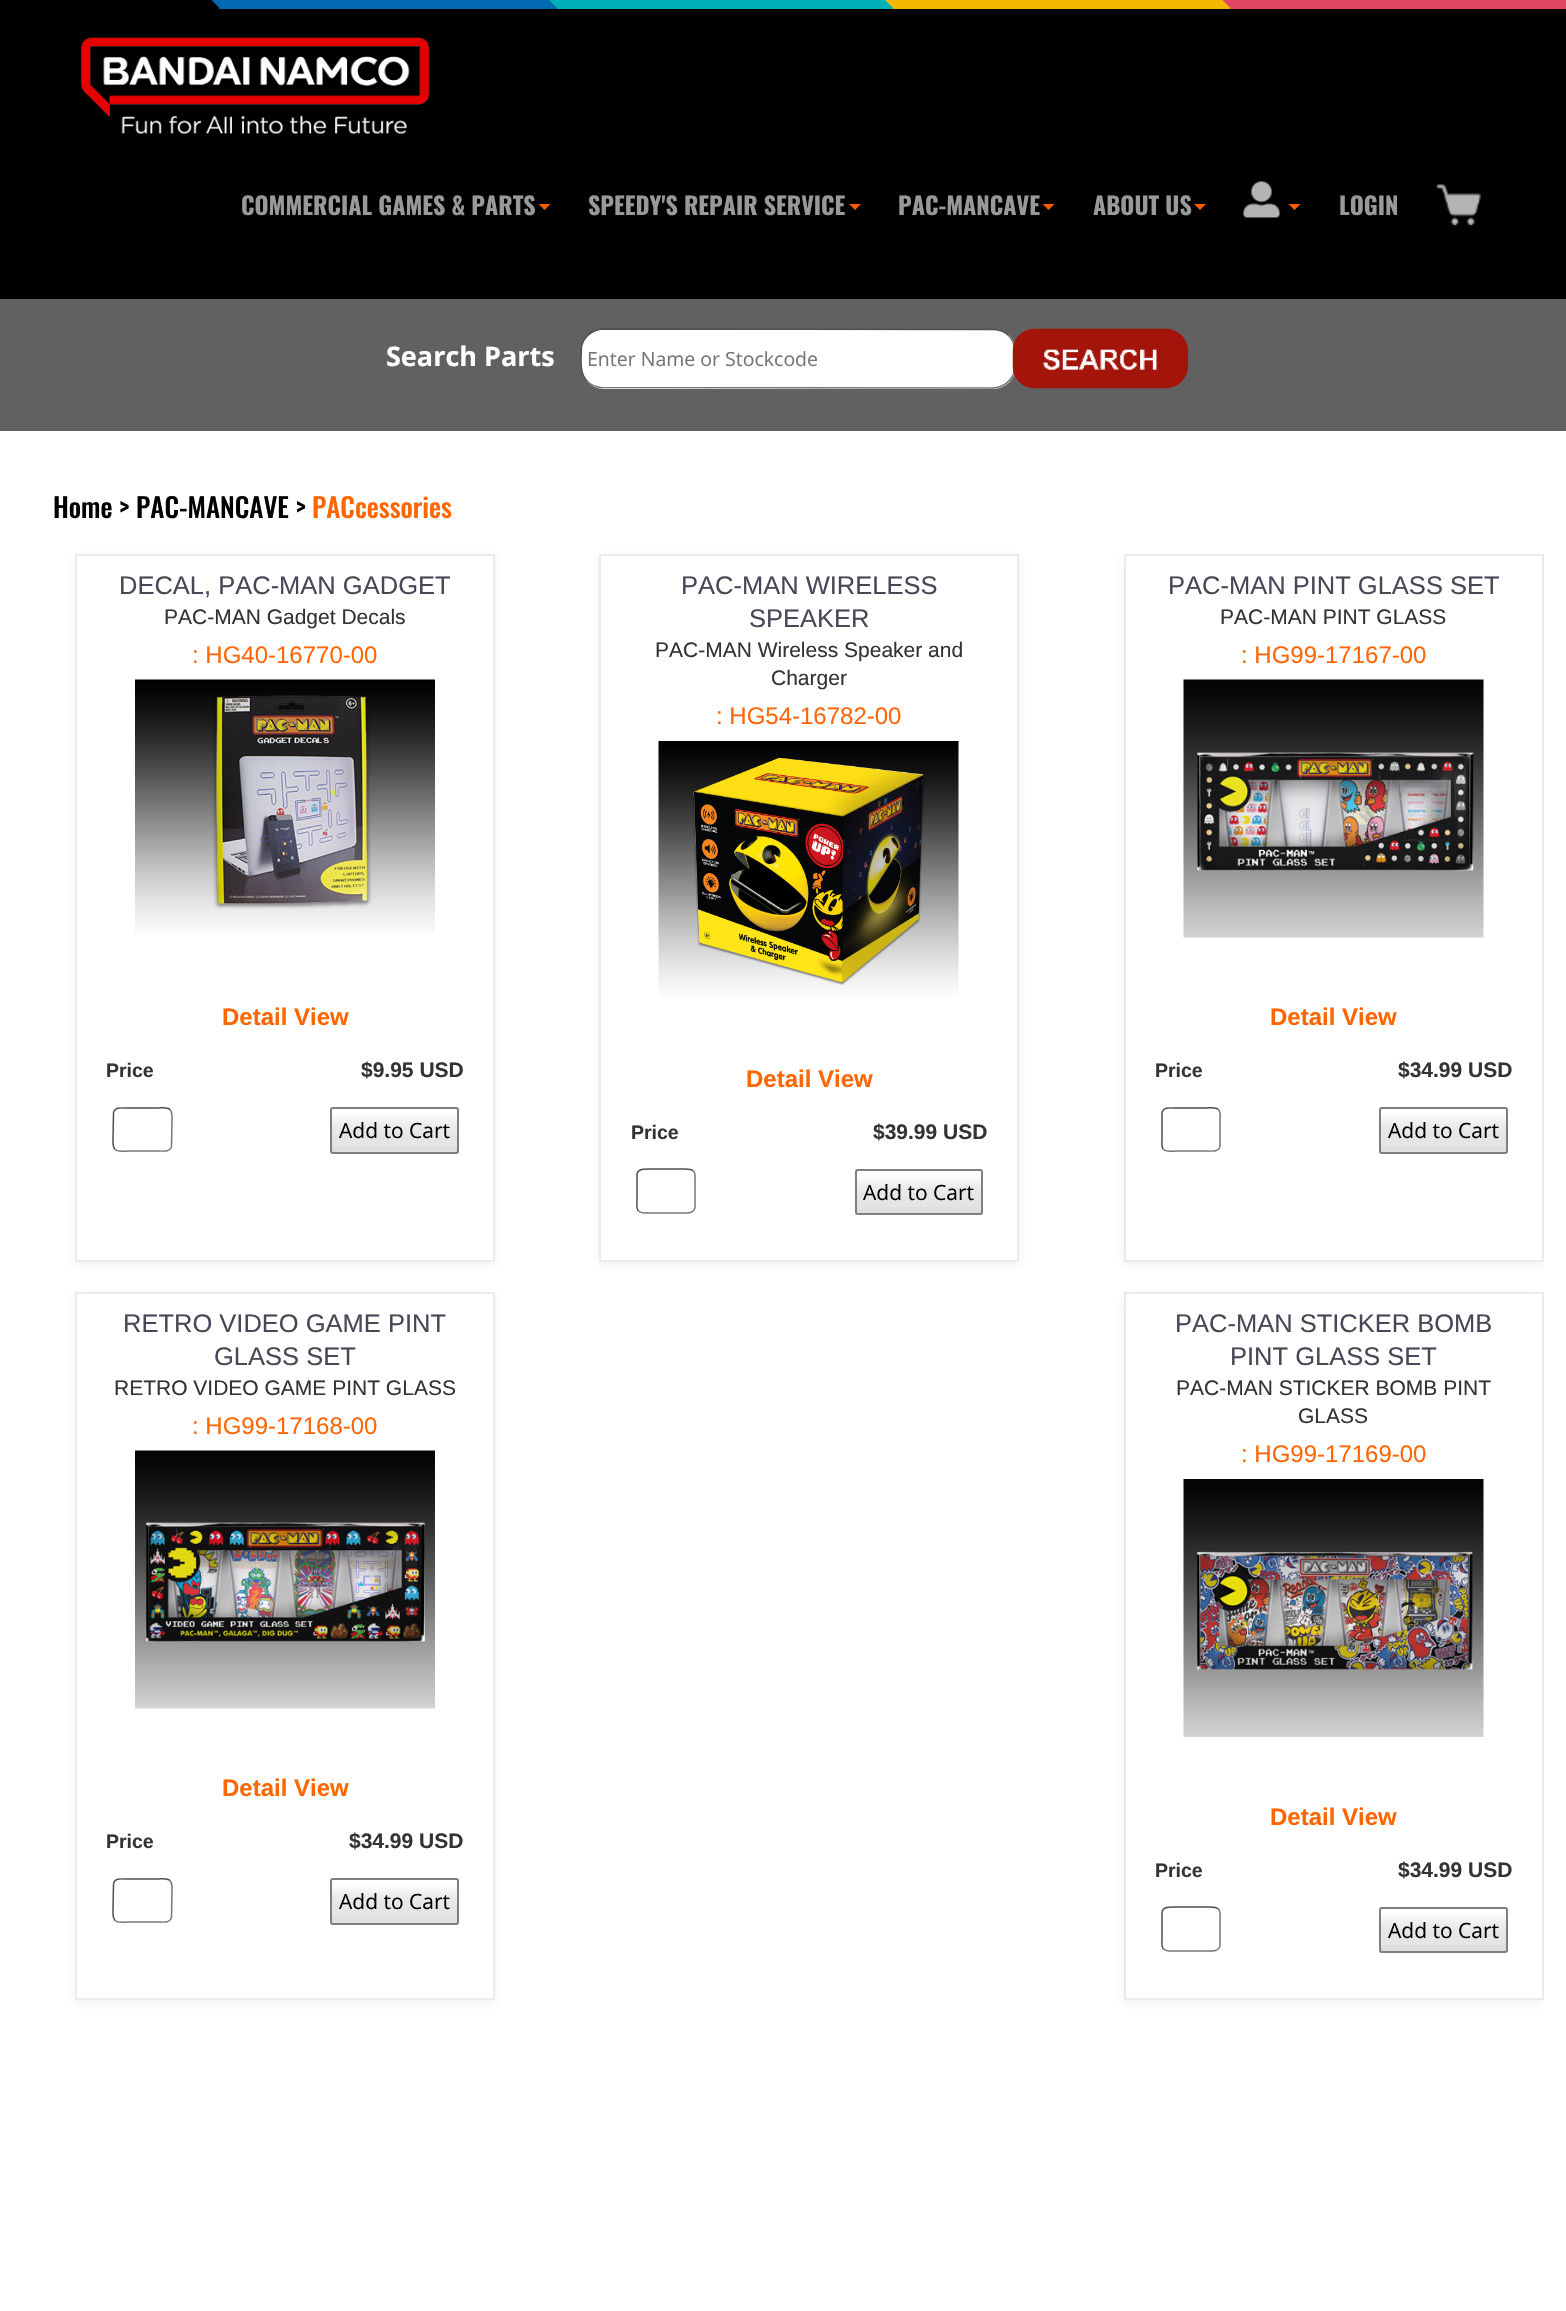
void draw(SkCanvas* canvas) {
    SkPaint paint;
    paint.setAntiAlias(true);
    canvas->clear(0xFFFFFFFF);
    paint.setColor(0xFF000000);
    canvas->drawRect(SkRect::MakeXYWH(0, 0, 219, 9), paint);
    paint.setColor(0xFF0069B1);
    canvas->drawRect(SkRect::MakeXYWH(219, 0, 338, 9), paint);
    canvas->drawPath(SkPathBuilder().moveTo(211.5f, 0).lineTo(226.5f, 0).lineTo(219, 7.5f).close().detach(), paint);
    paint.setColor(0xFF00B0B9);
    canvas->drawRect(SkRect::MakeXYWH(557, 0, 336, 9), paint);
    canvas->drawPath(SkPathBuilder().moveTo(549, 0).lineTo(564, 0).lineTo(556.5f, 7.5f).close().detach(), paint);
    paint.setColor(0xFFF6B700);
    canvas->drawRect(SkRect::MakeXYWH(893, 0, 337, 9), paint);
    canvas->drawPath(SkPathBuilder().moveTo(885, 0).lineTo(900, 0).lineTo(892.5f, 7.5f).close().detach(), paint);
    paint.setColor(0xFFDF4661);
    canvas->drawRect(SkRect::MakeXYWH(1230, 0, 336, 9), paint);
    canvas->drawPath(SkPathBuilder().moveTo(1222.5f, 0).lineTo(1237.5f, 0).lineTo(1230, 7.5f).close().detach(), paint);
    paint.setColor(0xFF000000);
    canvas->drawRect(SkRect::MakeXYWH(0, 9, 1566, 290), paint);
    canvas->drawImageRect(SkImages::DeferredFromEncodedData(SkData::MakeFromFileName("img1.png")), SkRect::MakeXYWH(80, 37, 350, 98), SkSamplingOptions());
    SkFont font1(fontMgr->matchFamilyStyle("Oswald", SkFontStyle::Bold()), 24);
    font1.setSubpixel(true);
    paint.setColor(0xFF999999);
    canvas->drawString("COMMERCIAL GAMES & PARTS", 241, 215, font1, paint);
    paint.setColor(0xFFFF5C00);
    canvas->drawPath(SkPathBuilder().moveTo(538.5f, 204).lineTo(550.5f, 204).lineTo(544.5f, 210).close().detach(), paint);
    paint.setColor(0xFF999999);
    canvas->drawString("SPEEDY'S REPAIR SERVICE", 588, 215, font1, paint);
    paint.setColor(0xFFFF5C00);
    canvas->drawPath(SkPathBuilder().moveTo(849, 204).lineTo(861, 204).lineTo(855, 210).close().detach(), paint);
    paint.setColor(0xFF999999);
    canvas->drawString("PAC-MANCAVE", 898, 215, font1, paint);
    paint.setColor(0xFFFF5C00);
    canvas->drawPath(SkPathBuilder().moveTo(1042.5f, 204).lineTo(1054.5f, 204).lineTo(1048.5f, 210).close().detach(), paint);
    paint.setColor(0xFF999999);
    canvas->drawString("ABOUT US", 1093, 215, font1, paint);
    paint.setColor(0xFFFF5C00);
    canvas->drawPath(SkPathBuilder().moveTo(1194, 204).lineTo(1206, 204).lineTo(1200, 210).close().detach(), paint);
    canvas->drawImageRect(SkImages::DeferredFromEncodedData(SkData::MakeFromFileName("img2.png")), SkRect::MakeXYWH(1243, 181, 37, 37), SkSamplingOptions());
    canvas->drawPath(SkPathBuilder().moveTo(1288.5f, 204).lineTo(1300.5f, 204).lineTo(1294.5f, 210).close().detach(), paint);
    paint.setColor(0xFF999999);
    canvas->drawString("LOGIN", 1339, 215, font1, paint);
    canvas->drawImageRect(SkImages::DeferredFromEncodedData(SkData::MakeFromFileName("img3.png")), SkRect::MakeXYWH(1436, 184, 45, 42), SkSamplingOptions());
    paint.setColor(0xFF616161);
    canvas->drawRect(SkRect::MakeXYWH(0, 299, 1566, 132), paint);
    SkFont font2(fontMgr->matchFamilyStyle("Open Sans", SkFontStyle::Bold()), 27);
    font2.setSubpixel(true);
    paint.setColor(0xFFFFFFFF);
    canvas->drawString("Search Parts", 386, 366, font2, paint);
    canvas->drawRoundRect(SkRect::MakeXYWH(581, 329, 435, 60), 23, 23, paint);
    paint.setStyle(SkPaint::kStroke_Style);
    paint.setStrokeWidth(1.5f);
    paint.setColor(0xFF767676);
    canvas->drawPath(SkPathBuilder().moveTo(1008.5f, 335.5f).cubicTo(1015, 342, 1015, 350, 1015, 358.5f).lineTo(1014.5f, 370.5f).cubicTo(1012.5f, 380.5f, 1003, 387.5f, 993, 388).lineTo(601, 387.5f).cubicTo(596, 387, 591, 385, 587.5f, 381.5f).detach(), paint);
    paint.setColor(0xFF4F4F4F);
    canvas->drawPath(SkPathBuilder().moveTo(587.5f, 381.5f).cubicTo(581, 375, 581, 367, 581, 358.5f).lineTo(581.5f, 346.5f).cubicTo(583.5f, 336.5f, 593, 329.5f, 603, 329).lineTo(995, 329.5f).cubicTo(1000, 330, 1005, 332, 1008.5f, 335.5f).detach(), paint);
    SkFont font3(fontMgr->matchFamilyStyle("Open Sans", SkFontStyle::Normal()), 19.5f);
    font3.setSubpixel(true);
    paint.setStyle(SkPaint::kFill_Style);
    paint.setColor(0xFF757575);
    canvas->drawString("Enter Name or Stockcode", 587, 366, font3, paint);
    canvas->drawImageRect(SkImages::DeferredFromEncodedData(SkData::MakeFromFileName("img4.png")), SkRect::MakeXYWH(1012, 328, 176, 61), SkSamplingOptions());
    SkFont font4(fontMgr->matchFamilyStyle("Oswald", SkFontStyle(500, SkFontStyle::kNormal_Width, SkFontStyle::kUpright_Slant)), 27);
    font4.setSubpixel(true);
    paint.setColor(0xFF000000);
    canvas->drawString("Home > PAC-MANCAVE >", 53, 518, font4, paint);
    paint.setColor(0xFFFF6600);
    canvas->drawString("PACcessories", 312, 518, font4, paint);
    paint.setColor(0x1445495B);
    paint.setMaskFilter(SkMaskFilter::MakeBlur(kNormal_SkBlurStyle, 4.5f));
    canvas->drawRect(SkRect::MakeXYWH(75, 557, 420, 708), paint);
    paint.setMaskFilter(nullptr);
    paint.setColor(0xFFFFFFFF);
    canvas->drawRect(SkRect::MakeXYWH(76, 555, 418, 706), paint);
    paint.setStyle(SkPaint::kStroke_Style);
    paint.setStrokeWidth(2);
    paint.setColor(0xFFEBEBEB);
    canvas->drawRect(SkRect::MakeXYWH(76, 555, 418, 706), paint);
    SkFont font5(fontMgr->matchFamilyStyle("Liberation Sans", SkFontStyle::Normal()), 25.5f);
    font5.setSubpixel(true);
    paint.setStyle(SkPaint::kFill_Style);
    paint.setColor(0xFF464855);
    canvas->drawString("DECAL, PAC-MAN GADGET", 119, 594, font5, paint);
    SkFont font6(fontMgr->matchFamilyStyle("Liberation Sans", SkFontStyle::Normal()), 21);
    font6.setSubpixel(true);
    paint.setColor(0xFF333333);
    canvas->drawString("PAC-MAN Gadget Decals", 164, 624, font6, paint);
    SkFont font7(fontMgr->matchFamilyStyle("Liberation Sans", SkFontStyle::Normal()), 24);
    font7.setSubpixel(true);
    paint.setColor(0xFFFF6607);
    canvas->drawString(": HG40-16770-00", 192, 663, font7, paint);
    canvas->drawImageRect(SkImages::DeferredFromEncodedData(SkData::MakeFromFileName("img5.png")), SkRect::MakeXYWH(135, 679, 300, 255), SkSamplingOptions());
    SkFont font8(fontMgr->matchFamilyStyle("Liberation Sans", SkFontStyle::Bold()), 24);
    font8.setSubpixel(true);
    paint.setColor(0xFFFF6600);
    canvas->drawString("Detail View", 222, 1025, font8, paint);
    SkFont font9(fontMgr->matchFamilyStyle("Liberation Sans", SkFontStyle::Bold()), 19.5f);
    font9.setSubpixel(true);
    paint.setColor(0xFF333333);
    canvas->drawString("Price", 106, 1077, font9, paint);
    SkFont font10(fontMgr->matchFamilyStyle("Liberation Sans", SkFontStyle::Bold()), 21);
    font10.setSubpixel(true);
    canvas->drawString("$9.95 USD", 361, 1077, font10, paint);
    paint.setStyle(SkPaint::kStroke_Style);
    paint.setStrokeWidth(1.5f);
    paint.setColor(0xFF767676);
    canvas->drawPath(SkPathBuilder().moveTo(170, 1109.5f).cubicTo(172.5f, 1112.5f, 172, 1116, 172, 1119.5f).lineTo(171.5f, 1146).cubicTo(170.5f, 1152.5f, 162.5f, 1151, 157.5f, 1151).lineTo(127.5f, 1151).cubicTo(124, 1151, 118.5f, 1152.5f, 115, 1149.5f).detach(), paint);
    paint.setColor(0xFF4F4F4F);
    canvas->drawPath(SkPathBuilder().moveTo(115, 1149.5f).cubicTo(112.5f, 1146.5f, 113, 1143, 113, 1139.5f).lineTo(113.5f, 1113).cubicTo(114.5f, 1106.5f, 122.5f, 1108, 127.5f, 1108).lineTo(157.5f, 1108).cubicTo(161, 1108, 166.5f, 1106.5f, 170, 1109.5f).detach(), paint);
    paint.setStyle(SkPaint::kFill_Style);
    paint.setColor(0xFFE0DFDF);
    canvas->drawRoundRect(SkRect::MakeXYWH(330, 1107, 129, 47), 3, 3, paint);
    canvas->drawImageRect(SkImages::DeferredFromEncodedData(SkData::MakeFromFileName("img6.png")), SkRect::MakeXYWH(330, 1108, 129, 38), SkSamplingOptions());
    paint.setStyle(SkPaint::kStroke_Style);
    paint.setStrokeWidth(2);
    paint.setColor(0xFF7F7F7F);
    canvas->drawRoundRect(SkRect::MakeXYWH(331, 1108, 127, 45), 2, 2, paint);
    SkFont font11(fontMgr->matchFamilyStyle("Open Sans", SkFontStyle::Normal()), 21);
    font11.setSubpixel(true);
    paint.setStyle(SkPaint::kFill_Style);
    paint.setColor(0xFF000000);
    canvas->drawString("Add to Cart", 339, 1138, font11, paint);
    paint.setColor(0x1445495B);
    paint.setMaskFilter(SkMaskFilter::MakeBlur(kNormal_SkBlurStyle, 4.5f));
    canvas->drawRect(SkRect::MakeXYWH(599, 557, 420, 708), paint);
    paint.setMaskFilter(nullptr);
    paint.setColor(0xFFFFFFFF);
    canvas->drawRect(SkRect::MakeXYWH(600, 555, 418, 706), paint);
    paint.setStyle(SkPaint::kStroke_Style);
    paint.setColor(0xFFEBEBEB);
    canvas->drawRect(SkRect::MakeXYWH(600, 555, 418, 706), paint);
    paint.setStyle(SkPaint::kFill_Style);
    paint.setColor(0xFF464855);
    canvas->drawString("PAC-MAN WIRELESS", 681, 594, font5, paint);
    canvas->drawString("SPEAKER", 749, 627, font5, paint);
    paint.setColor(0xFF333333);
    canvas->drawString("PAC-MAN Wireless Speaker and", 655, 657, font6, paint);
    canvas->drawString("Charger", 771, 685, font6, paint);
    paint.setColor(0xFFFF6607);
    canvas->drawString(": HG54-16782-00", 716, 724, font7, paint);
    canvas->drawImageRect(SkImages::DeferredFromEncodedData(SkData::MakeFromFileName("img7.png")), SkRect::MakeXYWH(658, 741, 301, 255), SkSamplingOptions());
    paint.setColor(0xFFFF6600);
    canvas->drawString("Detail View", 746, 1087, font8, paint);
    paint.setColor(0xFF333333);
    canvas->drawString("Price", 631, 1139, font9, paint);
    canvas->drawString("$39.99 USD", 873, 1139, font10, paint);
    paint.setStyle(SkPaint::kStroke_Style);
    paint.setStrokeWidth(1.5f);
    paint.setColor(0xFF767676);
    canvas->drawPath(SkPathBuilder().moveTo(693.5f, 1171).cubicTo(696, 1174, 695, 1177.5f, 695, 1181).lineTo(695, 1207.5f).cubicTo(694, 1214, 686, 1213, 681, 1213).lineTo(651, 1213).cubicTo(647.5f, 1213, 642, 1214, 638.5f, 1211).detach(), paint);
    paint.setColor(0xFF4F4F4F);
    canvas->drawPath(SkPathBuilder().moveTo(638.5f, 1211).cubicTo(636, 1208, 637, 1204.5f, 637, 1201).lineTo(637, 1174.5f).cubicTo(638, 1168, 646, 1169, 651, 1169).lineTo(681, 1169).cubicTo(684.5f, 1169, 690, 1168, 693.5f, 1171).detach(), paint);
    paint.setStyle(SkPaint::kFill_Style);
    paint.setColor(0xFFE0DFDF);
    canvas->drawRoundRect(SkRect::MakeXYWH(855, 1169, 128, 46), 3, 3, paint);
    canvas->drawImageRect(SkImages::DeferredFromEncodedData(SkData::MakeFromFileName("img8.png")), SkRect::MakeXYWH(855, 1170, 128, 37), SkSamplingOptions());
    paint.setStyle(SkPaint::kStroke_Style);
    paint.setStrokeWidth(2);
    paint.setColor(0xFF7F7F7F);
    canvas->drawRoundRect(SkRect::MakeXYWH(856, 1170, 126, 44), 2, 2, paint);
    paint.setStyle(SkPaint::kFill_Style);
    paint.setColor(0xFF000000);
    canvas->drawString("Add to Cart", 863, 1200, font11, paint);
    canvas->save();
    canvas->clipRect(SkRect::MakeXYWH(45, 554, 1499, 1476));
    paint.setColor(0x1445495B);
    paint.setMaskFilter(SkMaskFilter::MakeBlur(kNormal_SkBlurStyle, 4.5f));
    canvas->drawRect(SkRect::MakeXYWH(1124, 557, 420, 708), paint);
    paint.setMaskFilter(nullptr);
    canvas->restore();
    paint.setColor(0xFFFFFFFF);
    canvas->drawRect(SkRect::MakeXYWH(1125, 555, 418, 706), paint);
    paint.setStyle(SkPaint::kStroke_Style);
    paint.setColor(0xFFEBEBEB);
    canvas->drawRect(SkRect::MakeXYWH(1125, 555, 418, 706), paint);
    paint.setStyle(SkPaint::kFill_Style);
    paint.setColor(0xFF464855);
    canvas->drawString("PAC-MAN PINT GLASS SET", 1168, 594, font5, paint);
    paint.setColor(0xFF333333);
    canvas->drawString("PAC-MAN PINT GLASS", 1220, 624, font6, paint);
    paint.setColor(0xFFFF6607);
    canvas->drawString(": HG99-17167-00", 1241, 663, font7, paint);
    canvas->drawImageRect(SkImages::DeferredFromEncodedData(SkData::MakeFromFileName("img9.png")), SkRect::MakeXYWH(1183, 679, 301, 259), SkSamplingOptions());
    paint.setColor(0xFFFF6600);
    canvas->drawString("Detail View", 1270, 1025, font8, paint);
    paint.setColor(0xFF333333);
    canvas->drawString("Price", 1155, 1077, font9, paint);
    canvas->drawString("$34.99 USD", 1398, 1077, font10, paint);
    paint.setStyle(SkPaint::kStroke_Style);
    paint.setStrokeWidth(1.5f);
    paint.setColor(0xFF767676);
    canvas->drawPath(SkPathBuilder().moveTo(1218.5f, 1109.5f).cubicTo(1221, 1112.5f, 1220, 1116, 1220, 1119.5f).lineTo(1220, 1146).cubicTo(1219, 1152.5f, 1211, 1151, 1206, 1151).lineTo(1176, 1151).cubicTo(1172.5f, 1151, 1167, 1152.5f, 1163.5f, 1149.5f).detach(), paint);
    paint.setColor(0xFF4F4F4F);
    canvas->drawPath(SkPathBuilder().moveTo(1163.5f, 1149.5f).cubicTo(1161, 1146.5f, 1162, 1143, 1162, 1139.5f).lineTo(1162, 1113).cubicTo(1163, 1106.5f, 1171, 1108, 1176, 1108).lineTo(1206, 1108).cubicTo(1209.5f, 1108, 1215, 1106.5f, 1218.5f, 1109.5f).detach(), paint);
    paint.setStyle(SkPaint::kFill_Style);
    paint.setColor(0xFFE0DFDF);
    canvas->drawRoundRect(SkRect::MakeXYWH(1379, 1107, 129, 47), 3, 3, paint);
    canvas->drawImageRect(SkImages::DeferredFromEncodedData(SkData::MakeFromFileName("img10.png")), SkRect::MakeXYWH(1378, 1108, 130, 38), SkSamplingOptions());
    paint.setStyle(SkPaint::kStroke_Style);
    paint.setStrokeWidth(2);
    paint.setColor(0xFF7F7F7F);
    canvas->drawRoundRect(SkRect::MakeXYWH(1380, 1108, 127, 45), 2, 2, paint);
    paint.setStyle(SkPaint::kFill_Style);
    paint.setColor(0xFF000000);
    canvas->drawString("Add to Cart", 1388, 1138, font11, paint);
    paint.setColor(0x1445495B);
    paint.setMaskFilter(SkMaskFilter::MakeBlur(kNormal_SkBlurStyle, 4.5f));
    canvas->drawRect(SkRect::MakeXYWH(75, 1295, 420, 708), paint);
    paint.setMaskFilter(nullptr);
    paint.setColor(0xFFFFFFFF);
    canvas->drawRect(SkRect::MakeXYWH(76, 1293, 418, 706), paint);
    paint.setStyle(SkPaint::kStroke_Style);
    paint.setColor(0xFFEBEBEB);
    canvas->drawRect(SkRect::MakeXYWH(76, 1293, 418, 706), paint);
    paint.setStyle(SkPaint::kFill_Style);
    paint.setColor(0xFF464855);
    canvas->drawString("RETRO VIDEO GAME PINT", 123, 1332, font5, paint);
    canvas->drawString("GLASS SET", 214, 1365, font5, paint);
    paint.setColor(0xFF333333);
    canvas->drawString("RETRO VIDEO GAME PINT GLASS", 114, 1395, font6, paint);
    paint.setColor(0xFFFF6607);
    canvas->drawString(": HG99-17168-00", 192, 1434, font7, paint);
    canvas->drawImageRect(SkImages::DeferredFromEncodedData(SkData::MakeFromFileName("img11.png")), SkRect::MakeXYWH(135, 1450, 300, 259), SkSamplingOptions());
    paint.setColor(0xFFFF6600);
    canvas->drawString("Detail View", 222, 1796, font8, paint);
    paint.setColor(0xFF333333);
    canvas->drawString("Price", 106, 1848, font9, paint);
    canvas->drawString("$34.99 USD", 349, 1848, font10, paint);
    paint.setStyle(SkPaint::kStroke_Style);
    paint.setStrokeWidth(1.5f);
    paint.setColor(0xFF767676);
    canvas->drawPath(SkPathBuilder().moveTo(170, 1880.5f).cubicTo(172.5f, 1883.5f, 172, 1887, 172, 1890.5f).lineTo(171.5f, 1917).cubicTo(170.5f, 1923.5f, 162.5f, 1922, 157.5f, 1922).lineTo(127.5f, 1922).cubicTo(124, 1922, 118.5f, 1923.5f, 115, 1920.5f).detach(), paint);
    paint.setColor(0xFF4F4F4F);
    canvas->drawPath(SkPathBuilder().moveTo(115, 1920.5f).cubicTo(112.5f, 1917.5f, 113, 1914, 113, 1910.5f).lineTo(113.5f, 1884).cubicTo(114.5f, 1877.5f, 122.5f, 1879, 127.5f, 1879).lineTo(157.5f, 1879).cubicTo(161, 1879, 166.5f, 1877.5f, 170, 1880.5f).detach(), paint);
    paint.setStyle(SkPaint::kFill_Style);
    paint.setColor(0xFFE0DFDF);
    canvas->drawRoundRect(SkRect::MakeXYWH(330, 1878, 129, 47), 3, 3, paint);
    canvas->drawImageRect(SkImages::DeferredFromEncodedData(SkData::MakeFromFileName("img6.png")), SkRect::MakeXYWH(330, 1879, 129, 38), SkSamplingOptions());
    paint.setStyle(SkPaint::kStroke_Style);
    paint.setStrokeWidth(2);
    paint.setColor(0xFF7F7F7F);
    canvas->drawRoundRect(SkRect::MakeXYWH(331, 1879, 127, 45), 2, 2, paint);
    paint.setStyle(SkPaint::kFill_Style);
    paint.setColor(0xFF000000);
    canvas->drawString("Add to Cart", 339, 1909, font11, paint);
    canvas->save();
    canvas->clipRect(SkRect::MakeXYWH(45, 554, 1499, 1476));
    paint.setColor(0x1445495B);
    paint.setMaskFilter(SkMaskFilter::MakeBlur(kNormal_SkBlurStyle, 4.5f));
    canvas->drawRect(SkRect::MakeXYWH(1124, 1295, 420, 708), paint);
    paint.setMaskFilter(nullptr);
    canvas->restore();
    paint.setColor(0xFFFFFFFF);
    canvas->drawRect(SkRect::MakeXYWH(1125, 1293, 418, 706), paint);
    paint.setStyle(SkPaint::kStroke_Style);
    paint.setColor(0xFFEBEBEB);
    canvas->drawRect(SkRect::MakeXYWH(1125, 1293, 418, 706), paint);
    paint.setStyle(SkPaint::kFill_Style);
    paint.setColor(0xFF464855);
    canvas->drawString("PAC-MAN STICKER BOMB", 1175, 1332, font5, paint);
    canvas->drawString("PINT GLASS SET", 1230, 1365, font5, paint);
    paint.setColor(0xFF333333);
    canvas->drawString("PAC-MAN STICKER BOMB PINT", 1176, 1395, font6, paint);
    canvas->drawString("GLASS", 1298, 1423, font6, paint);
    paint.setColor(0xFFFF6607);
    canvas->drawString(": HG99-17169-00", 1241, 1462, font7, paint);
    canvas->drawImageRect(SkImages::DeferredFromEncodedData(SkData::MakeFromFileName("img12.png")), SkRect::MakeXYWH(1183, 1479, 301, 258), SkSamplingOptions());
    paint.setColor(0xFFFF6600);
    canvas->drawString("Detail View", 1270, 1825, font8, paint);
    paint.setColor(0xFF333333);
    canvas->drawString("Price", 1155, 1877, font9, paint);
    canvas->drawString("$34.99 USD", 1398, 1877, font10, paint);
    paint.setStyle(SkPaint::kStroke_Style);
    paint.setStrokeWidth(1.5f);
    paint.setColor(0xFF767676);
    canvas->drawPath(SkPathBuilder().moveTo(1218.5f, 1909).cubicTo(1221, 1912, 1220, 1915.5f, 1220, 1919).lineTo(1220, 1945.5f).cubicTo(1219, 1952, 1211, 1951, 1206, 1951).lineTo(1176, 1951).cubicTo(1172.5f, 1951, 1167, 1952, 1163.5f, 1949).detach(), paint);
    paint.setColor(0xFF4F4F4F);
    canvas->drawPath(SkPathBuilder().moveTo(1163.5f, 1949).cubicTo(1161, 1946, 1162, 1942.5f, 1162, 1939).lineTo(1162, 1912.5f).cubicTo(1163, 1906, 1171, 1907, 1176, 1907).lineTo(1206, 1907).cubicTo(1209.5f, 1907, 1215, 1906, 1218.5f, 1909).detach(), paint);
    paint.setStyle(SkPaint::kFill_Style);
    paint.setColor(0xFFE0DFDF);
    canvas->drawRoundRect(SkRect::MakeXYWH(1379, 1907, 129, 46), 3, 3, paint);
    canvas->drawImageRect(SkImages::DeferredFromEncodedData(SkData::MakeFromFileName("img13.png")), SkRect::MakeXYWH(1378, 1908, 130, 37), SkSamplingOptions());
    paint.setStyle(SkPaint::kStroke_Style);
    paint.setStrokeWidth(2);
    paint.setColor(0xFF7F7F7F);
    canvas->drawRoundRect(SkRect::MakeXYWH(1380, 1908, 127, 44), 2, 2, paint);
    paint.setStyle(SkPaint::kFill_Style);
    paint.setColor(0xFF000000);
    canvas->drawString("Add to Cart", 1388, 1938, font11, paint);
}
